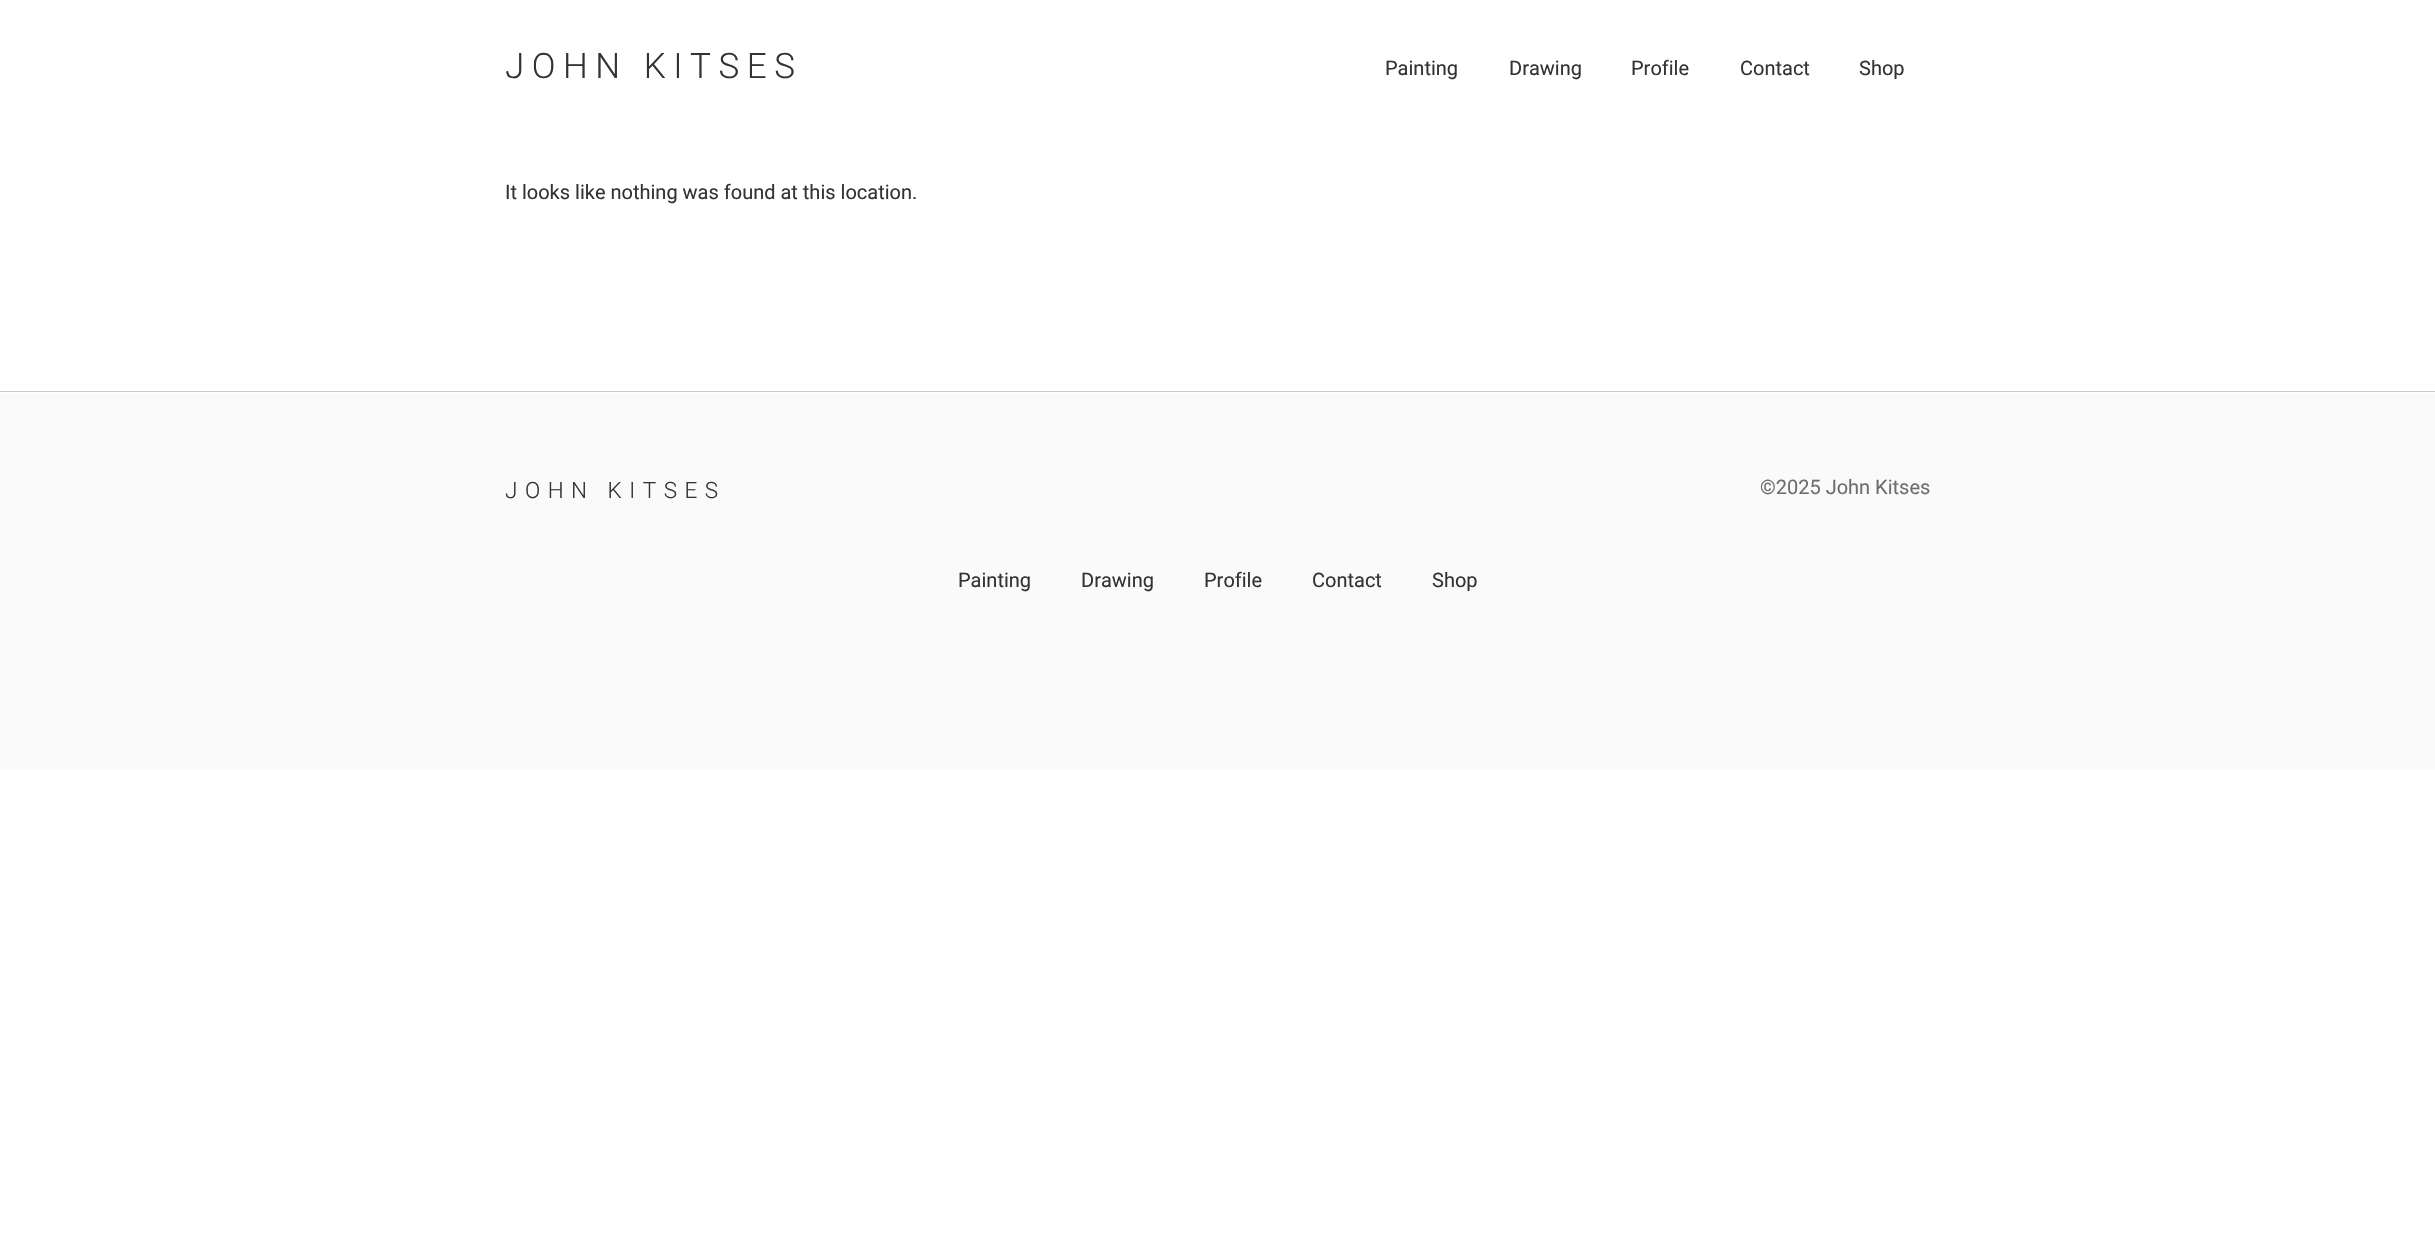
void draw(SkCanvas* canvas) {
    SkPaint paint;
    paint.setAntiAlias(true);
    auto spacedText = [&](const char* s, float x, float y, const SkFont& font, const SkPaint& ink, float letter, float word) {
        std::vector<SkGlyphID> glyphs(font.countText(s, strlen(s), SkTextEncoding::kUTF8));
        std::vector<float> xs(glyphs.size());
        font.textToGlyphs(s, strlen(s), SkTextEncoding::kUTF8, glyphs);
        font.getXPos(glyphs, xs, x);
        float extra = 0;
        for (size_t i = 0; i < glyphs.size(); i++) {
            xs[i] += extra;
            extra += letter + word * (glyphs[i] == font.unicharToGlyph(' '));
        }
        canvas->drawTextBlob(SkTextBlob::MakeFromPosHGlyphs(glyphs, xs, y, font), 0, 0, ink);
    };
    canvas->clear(0xFFFFFFFF);
    SkFont font1(fontMgr->matchFamilyStyle("Roboto", SkFontStyle(300, SkFontStyle::kNormal_Width, SkFontStyle::kUpright_Slant)), 35);
    font1.setSubpixel(true);
    paint.setColor(0xFF333333);
    spacedText("JOHN KITSES", 505, 78, font1, paint, 7.5f, 0);
    SkFont font2(fontMgr->matchFamilyStyle("Roboto", SkFontStyle::Normal()), 20);
    font2.setSubpixel(true);
    canvas->drawString("Painting", 1385, 75, font2, paint);
    canvas->drawString("Drawing", 1509, 75, font2, paint);
    canvas->drawString("Profile", 1631, 75, font2, paint);
    canvas->drawString("Contact", 1740, 75, font2, paint);
    canvas->drawString("Shop", 1859, 75, font2, paint);
    canvas->drawString("It looks like nothing was found at this location.", 505, 199, font2, paint);
    paint.setColor(0xFFFAFAFA);
    canvas->drawRect(SkRect::MakeXYWH(0, 393, 2435, 376), paint);
    paint.setColor(0xFFC9C9C9);
    canvas->drawRect(SkRect::MakeXYWH(0, 391, 2435, 1), paint);
    SkFont font3(fontMgr->matchFamilyStyle("Roboto", SkFontStyle(300, SkFontStyle::kNormal_Width, SkFontStyle::kUpright_Slant)), 22.5f);
    font3.setSubpixel(true);
    paint.setColor(0xFF333333);
    spacedText("JOHN KITSES", 505, 498, font3, paint, 7.5f, 0);
    paint.setColor(0xFF6D6D6D);
    canvas->drawString("©2025 John Kitses", 1760, 494, font2, paint);
    paint.setColor(0xFF333333);
    canvas->drawString("Painting", 958, 587, font2, paint);
    canvas->drawString("Drawing", 1081, 587, font2, paint);
    canvas->drawString("Profile", 1204, 587, font2, paint);
    canvas->drawString("Contact", 1312, 587, font2, paint);
    canvas->drawString("Shop", 1432, 587, font2, paint);
}
